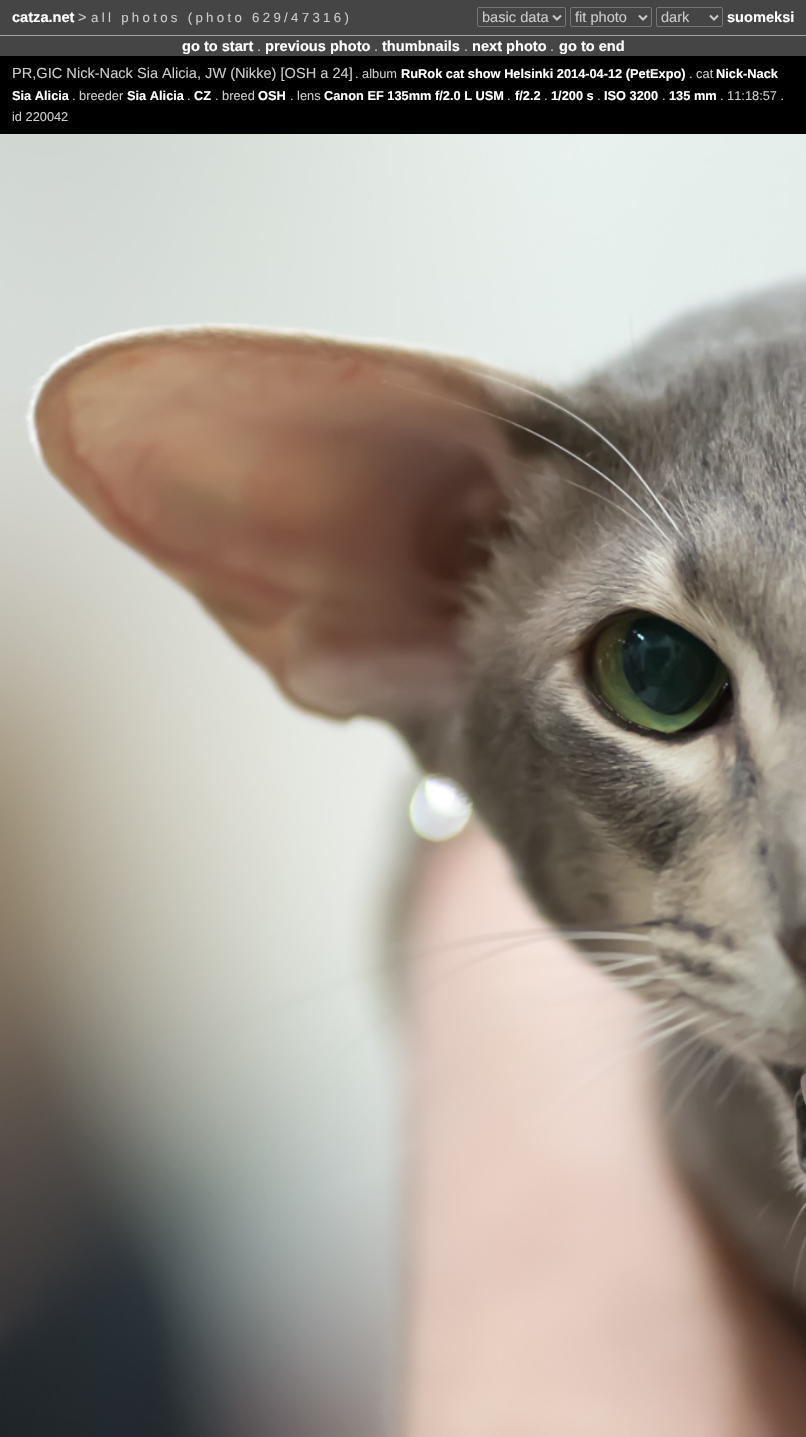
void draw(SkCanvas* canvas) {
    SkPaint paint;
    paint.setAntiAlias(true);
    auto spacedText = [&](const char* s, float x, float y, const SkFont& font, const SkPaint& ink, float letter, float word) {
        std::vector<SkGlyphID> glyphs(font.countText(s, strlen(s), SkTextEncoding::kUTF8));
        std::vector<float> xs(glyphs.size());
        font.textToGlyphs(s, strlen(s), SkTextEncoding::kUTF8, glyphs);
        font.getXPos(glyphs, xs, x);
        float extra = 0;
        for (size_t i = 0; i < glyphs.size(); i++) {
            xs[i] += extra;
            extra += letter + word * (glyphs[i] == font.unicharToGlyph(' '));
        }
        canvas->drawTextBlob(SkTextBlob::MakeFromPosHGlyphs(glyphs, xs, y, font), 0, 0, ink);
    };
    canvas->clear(0xFF000000);
    paint.setColor(0xFF454545);
    canvas->drawRect(SkRect::MakeXYWH(0, 0, 806, 56), paint);
    SkFont font1(fontMgr->matchFamilyStyle("Liberation Sans", SkFontStyle::Bold()), 14.6f);
    font1.setSubpixel(true);
    paint.setColor(0xFFFFFFFF);
    canvas->drawString("catza.net", 12, 22, font1, paint);
    SkFont font2(fontMgr->matchFamilyStyle("Liberation Sans", SkFontStyle::Normal()), 14.6f);
    font2.setSubpixel(true);
    paint.setColor(0xFFCBCBCB);
    canvas->drawString(">", 78, 22, font2, paint);
    SkFont font3(fontMgr->matchFamilyStyle("Liberation Sans", SkFontStyle::Normal()), 13.25f);
    font3.setSubpixel(true);
    spacedText("all photos (photo 629/47316)", 91, 22, font3, paint, 3.3f, 0);
    paint.setStyle(SkPaint::kStroke_Style);
    paint.setStrokeWidth(1);
    paint.setColor(0xFF767676);
    canvas->drawRoundRect(SkRect::MakeXYWH(477.5f, 7.5f, 88, 19), 1.5f, 1.5f, paint);
    paint.setStrokeWidth(2);
    paint.setColor(0xFFCBCBCB);
    canvas->drawPath(SkPathBuilder().moveTo(553, 15.5f).lineTo(557, 19.5f).lineTo(561, 15.5f).detach(), paint);
    paint.setStyle(SkPaint::kFill_Style);
    canvas->drawString("basic data", 482, 22, font2, paint);
    paint.setStyle(SkPaint::kStroke_Style);
    paint.setStrokeWidth(1);
    paint.setColor(0xFF767676);
    canvas->drawRoundRect(SkRect::MakeXYWH(570.5f, 7.5f, 81, 19), 1.5f, 1.5f, paint);
    paint.setStrokeWidth(2);
    paint.setColor(0xFFCBCBCB);
    canvas->drawPath(SkPathBuilder().moveTo(639, 15.5f).lineTo(643, 19.5f).lineTo(647, 15.5f).detach(), paint);
    paint.setStyle(SkPaint::kFill_Style);
    canvas->drawString("fit photo", 575, 22, font2, paint);
    paint.setStyle(SkPaint::kStroke_Style);
    paint.setStrokeWidth(1);
    paint.setColor(0xFF767676);
    canvas->drawRoundRect(SkRect::MakeXYWH(656.5f, 7.5f, 66, 19), 1.5f, 1.5f, paint);
    paint.setStrokeWidth(2);
    paint.setColor(0xFFCBCBCB);
    canvas->drawPath(SkPathBuilder().moveTo(710, 15.5f).lineTo(714, 19.5f).lineTo(718, 15.5f).detach(), paint);
    paint.setStyle(SkPaint::kFill_Style);
    canvas->drawString("dark", 661, 22, font2, paint);
    paint.setColor(0xFFFFFFFF);
    canvas->drawString("suomeksi", 727, 22, font1, paint);
    paint.setColor(0xFFA3A3A3);
    canvas->drawRect(SkRect::MakeXYWH(0, 35, 806, 1), paint);
    paint.setColor(0xFFFFFFFF);
    canvas->drawString("go to start", 182, 51, font1, paint);
    paint.setColor(0xFFCBCBCB);
    canvas->drawString(".", 257, 51, font2, paint);
    paint.setColor(0xFFFFFFFF);
    canvas->drawString("previous photo", 265, 51, font1, paint);
    paint.setColor(0xFFCBCBCB);
    canvas->drawString(".", 374, 51, font2, paint);
    paint.setColor(0xFFFFFFFF);
    canvas->drawString("thumbnails", 382, 51, font1, paint);
    paint.setColor(0xFFCBCBCB);
    canvas->drawString(".", 464, 51, font2, paint);
    paint.setColor(0xFFFFFFFF);
    canvas->drawString("next photo", 472, 51, font1, paint);
    paint.setColor(0xFFCBCBCB);
    canvas->drawString(".", 550, 51, font2, paint);
    paint.setColor(0xFFFFFFFF);
    canvas->drawString("go to end", 559, 51, font1, paint);
    paint.setColor(0xFFCBCBCB);
    canvas->drawString("PR,GIC Nick-Nack Sia Alicia, JW (Nikke) [OSH a 24]", 12, 78, font2, paint);
    SkFont font4(fontMgr->matchFamilyStyle("Liberation Sans", SkFontStyle::Normal()), 12.8f);
    font4.setSubpixel(true);
    canvas->drawString(". album", 355, 78, font4, paint);
    SkFont font5(fontMgr->matchFamilyStyle("Liberation Sans", SkFontStyle::Bold()), 12.8f);
    font5.setSubpixel(true);
    paint.setColor(0xFFFFFFFF);
    canvas->drawString("RuRok cat show Helsinki 2014-04-12 (PetExpo)", 401, 78, font5, paint);
    paint.setColor(0xFFCBCBCB);
    canvas->drawString(". cat", 689, 78, font4, paint);
    paint.setColor(0xFFFFFFFF);
    canvas->drawString("Nick-Nack", 716, 78, font5, paint);
    canvas->drawString("Sia Alicia", 12, 100, font5, paint);
    paint.setColor(0xFFCBCBCB);
    canvas->drawString(". breeder", 72, 100, font4, paint);
    paint.setColor(0xFFFFFFFF);
    canvas->drawString("Sia Alicia", 127, 100, font5, paint);
    paint.setColor(0xFFCBCBCB);
    canvas->drawString(".", 187, 100, font4, paint);
    paint.setColor(0xFFFFFFFF);
    canvas->drawString("CZ", 194, 100, font5, paint);
    paint.setColor(0xFFCBCBCB);
    canvas->drawString(". breed", 215, 100, font4, paint);
    paint.setColor(0xFFFFFFFF);
    canvas->drawString("OSH", 258, 100, font5, paint);
    paint.setColor(0xFFCBCBCB);
    canvas->drawString(". lens", 290, 100, font4, paint);
    paint.setColor(0xFFFFFFFF);
    canvas->drawString("Canon EF 135mm f/2.0 L USM", 324, 100, font5, paint);
    paint.setColor(0xFFCBCBCB);
    canvas->drawString(".", 507, 100, font4, paint);
    paint.setColor(0xFFFFFFFF);
    canvas->drawString("f/2.2", 515, 100, font5, paint);
    paint.setColor(0xFFCBCBCB);
    canvas->drawString(".", 544, 100, font4, paint);
    paint.setColor(0xFFFFFFFF);
    canvas->drawString("1/200 s", 551, 100, font5, paint);
    paint.setColor(0xFFCBCBCB);
    canvas->drawString(".", 597, 100, font4, paint);
    paint.setColor(0xFFFFFFFF);
    canvas->drawString("ISO 3200", 604, 100, font5, paint);
    paint.setColor(0xFFCBCBCB);
    canvas->drawString(".", 662, 100, font4, paint);
    paint.setColor(0xFFFFFFFF);
    canvas->drawString("135 mm", 669, 100, font5, paint);
    paint.setColor(0xFFCBCBCB);
    canvas->drawString(". 11:18:57 .", 720, 100, font4, paint);
    canvas->drawString("id 220042", 12, 121, font4, paint);
    canvas->drawImageRect(SkImages::DeferredFromEncodedData(SkData::MakeFromFileName("img1.png")), SkRect::MakeXYWH(0, 134, 806, 1303), SkSamplingOptions());
}
